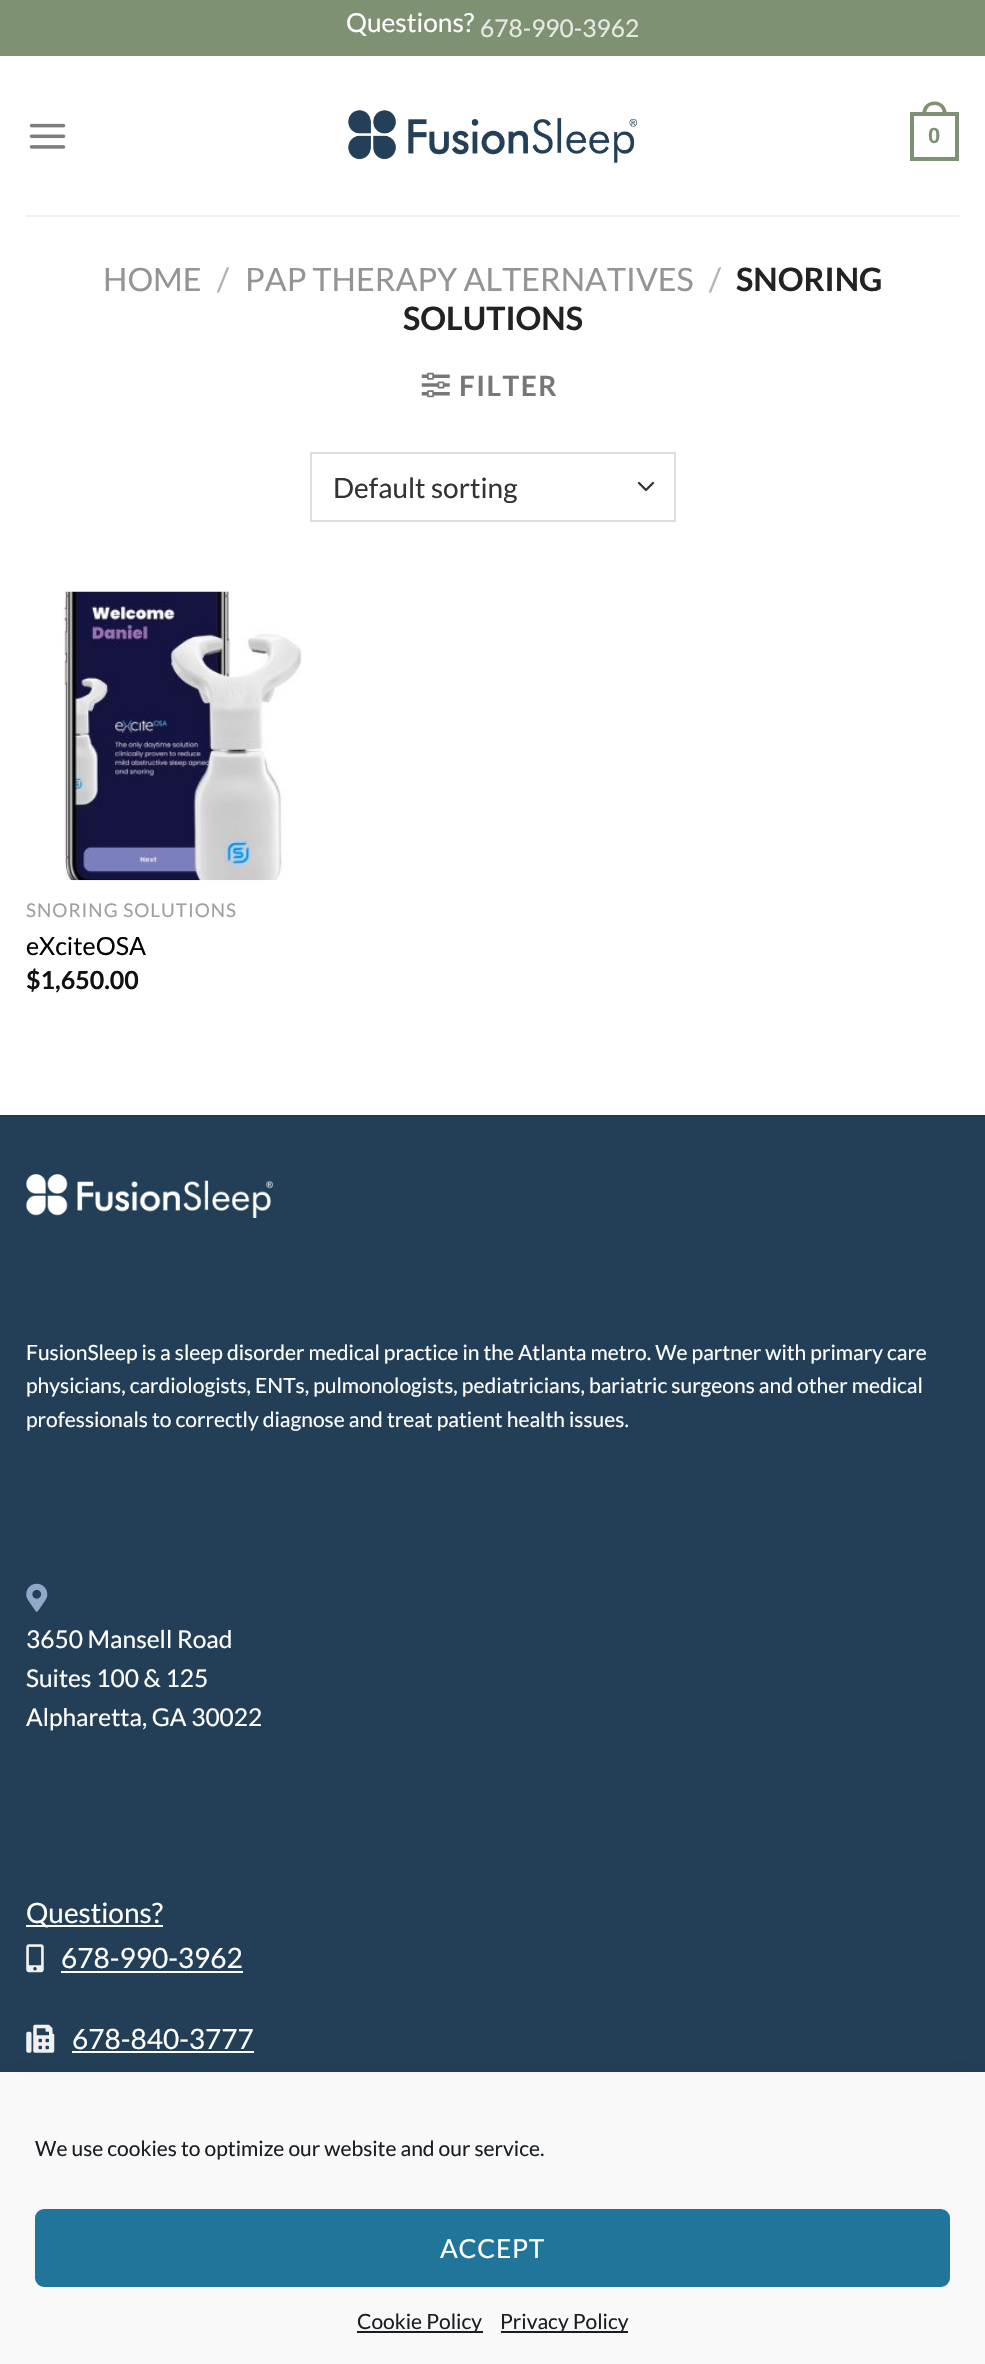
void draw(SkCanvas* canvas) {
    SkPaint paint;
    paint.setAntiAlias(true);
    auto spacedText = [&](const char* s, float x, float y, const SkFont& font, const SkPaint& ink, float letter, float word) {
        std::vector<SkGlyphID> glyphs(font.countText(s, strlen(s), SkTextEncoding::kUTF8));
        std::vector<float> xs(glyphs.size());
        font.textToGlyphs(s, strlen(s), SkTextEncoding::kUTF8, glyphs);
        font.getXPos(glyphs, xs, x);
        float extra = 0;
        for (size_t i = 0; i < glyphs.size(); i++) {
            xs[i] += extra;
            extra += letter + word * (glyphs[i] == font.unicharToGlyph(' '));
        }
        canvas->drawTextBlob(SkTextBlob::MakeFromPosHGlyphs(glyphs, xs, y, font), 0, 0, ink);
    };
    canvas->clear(0xFFFFFFFF);
    paint.setColor(0xFF7F9173);
    canvas->drawRect(SkRect::MakeXYWH(0, 0, 985, 56), paint);
    SkFont font1(fontMgr->matchFamilyStyle("Lato", SkFontStyle::Normal()), 26.25f);
    font1.setSubpixel(true);
    paint.setColor(0xFFFFFFFF);
    canvas->drawString("Questions?", 346, 32, font1, paint);
    SkFont font2(fontMgr->matchFamilyStyle("Lato", SkFontStyle::Normal()), 24.5f);
    font2.setSubpixel(true);
    paint.setColor(0xFFE5E9E3);
    canvas->drawString("678-990-3962", 480, 37, font2, paint);
    canvas->drawImageRect(SkImages::DeferredFromEncodedData(SkData::MakeFromFileName("img1.png")), SkRect::MakeXYWH(29, 123, 37, 26), SkSamplingOptions());
    canvas->drawImageRect(SkImages::DeferredFromEncodedData(SkData::MakeFromFileName("img2.png")), SkRect::MakeXYWH(348, 110, 289, 53), SkSamplingOptions());
    paint.setStyle(SkPaint::kStroke_Style);
    paint.setStrokeWidth(4);
    paint.setColor(0xFF7F9173);
    canvas->drawRect(SkRect::MakeXYWH(912, 114, 45, 45), paint);
    paint.setStyle(SkPaint::kFill_Style);
    canvas->drawPath(SkPathBuilder(SkPathFillType::kEvenOdd).moveTo(934.5f, 101.5f).cubicTo(943, 101.5f, 947, 108, 947, 115.5f).lineTo(922, 115.5f).cubicTo(922, 108, 926, 101.5f, 934.5f, 101.5f).close().moveTo(934.5f, 105).cubicTo(941, 105, 943, 110, 943, 115.5f).lineTo(926, 115.5f).cubicTo(926, 110, 928, 105, 934.5f, 105).close().detach(), paint);
    SkFont font3(fontMgr->matchFamilyStyle("Liberation Sans", SkFontStyle::Bold()), 22);
    font3.setSubpixel(true);
    canvas->drawString("0", 928, 143, font3, paint);
    paint.setColor(0xFFF1F1F1);
    canvas->drawRect(SkRect::MakeXYWH(26, 215, 933, 2), paint);
    SkFont font4(fontMgr->matchFamilyStyle("Lato", SkFontStyle::Normal()), 32.25f);
    font4.setSubpixel(true);
    paint.setColor(0xFF949494);
    canvas->drawString("HOME", 103, 291, font4, paint);
    paint.setColor(0xFFB2B2B2);
    canvas->drawString("/", 217, 291, font4, paint);
    paint.setColor(0xFF949494);
    canvas->drawString("PAP THERAPY ALTERNATIVES", 245, 291, font4, paint);
    paint.setColor(0xFFB2B2B2);
    canvas->drawString("/", 709, 291, font4, paint);
    SkFont font5(fontMgr->matchFamilyStyle("Lato", SkFontStyle::Bold()), 32.25f);
    font5.setSubpixel(true);
    paint.setColor(0xFF222222);
    canvas->drawString("SNORING", 736, 291, font5, paint);
    canvas->drawString("SOLUTIONS", 403, 330, font5, paint);
    canvas->drawImageRect(SkImages::DeferredFromEncodedData(SkData::MakeFromFileName("img3.png")), SkRect::MakeXYWH(421, 372, 29, 26), SkSamplingOptions());
    SkFont font6(fontMgr->matchFamilyStyle("Lato", SkFontStyle::Bold()), 28);
    font6.setSubpixel(true);
    paint.setColor(0xFF777777);
    spacedText("FILTER", 459, 396, font6, paint, 1.5f, 0);
    paint.setStyle(SkPaint::kStroke_Style);
    paint.setStrokeWidth(2.3f);
    paint.setStrokeCap(SkPaint::kRound_Cap);
    paint.setStrokeJoin(SkPaint::kRound_Join);
    paint.setColor(0xFF333333);
    canvas->drawPath(SkPathBuilder().moveTo(639, 483).lineTo(646, 490).lineTo(653, 483).detach(), paint);
    paint.setStrokeWidth(2);
    paint.setStrokeCap(SkPaint::kButt_Cap);
    paint.setStrokeJoin(SkPaint::kMiter_Join);
    paint.setColor(0xFFDDDDDD);
    canvas->drawRect(SkRect::MakeXYWH(311, 453, 364, 68), paint);
    SkFont font7(fontMgr->matchFamilyStyle("Lato", SkFontStyle::Normal()), 28);
    font7.setSubpixel(true);
    paint.setStyle(SkPaint::kFill_Style);
    paint.setColor(0xFF333333);
    canvas->drawString("Default sorting", 333, 498, font7, paint);
    canvas->drawImageRect(SkImages::DeferredFromEncodedData(SkData::MakeFromFileName("img4.png")), SkRect::MakeXYWH(63, 591, 239, 290), SkSamplingOptions());
    SkFont font8(fontMgr->matchFamilyStyle("Lato", SkFontStyle::Normal()), 18.9f);
    font8.setSubpixel(true);
    paint.setColor(0xFFA0A0A0);
    spacedText("SNORING SOLUTIONS", 26, 917, font8, paint, 1, 0);
    SkFont font9(fontMgr->matchFamilyStyle("Lato", SkFontStyle::Normal()), 25);
    font9.setSubpixel(true);
    paint.setColor(0xFF000000);
    canvas->drawString("eXciteOSA", 26, 955, font9, paint);
    SkFont font10(fontMgr->matchFamilyStyle("Lato", SkFontStyle::Bold()), 25);
    font10.setSubpixel(true);
    paint.setColor(0xFF111111);
    canvas->drawString("$1,650.00", 26, 989, font10, paint);
    paint.setColor(0xFF223F57);
    canvas->drawRect(SkRect::MakeXYWH(0, 1117, 985, 955), paint);
    paint.setColor(0xFF203C53);
    canvas->drawRect(SkRect::MakeXYWH(0, 1115, 985, 2), paint);
    canvas->drawImageRect(SkImages::DeferredFromEncodedData(SkData::MakeFromFileName("img5.png")), SkRect::MakeXYWH(26, 1174, 247, 44), SkSamplingOptions());
    SkFont font11(fontMgr->matchFamilyStyle("Lato", SkFontStyle::Normal()), 21);
    font11.setSubpixel(true);
    paint.setColor(0xFFFFFFFF);
    canvas->drawString("FusionSleep is a sleep disorder medical practice in the Atlanta metro. We partner with primary care", 26, 1360, font11, paint);
    canvas->drawString("physicians, cardiologists, ENTs, pulmonologists, pediatricians, bariatric surgeons and other medical", 26, 1393, font11, paint);
    canvas->drawString("professionals to correctly diagnose and treat patient health issues.", 26, 1427, font11, paint);
    canvas->drawImageRect(SkImages::DeferredFromEncodedData(SkData::MakeFromFileName("img6.png")), SkRect::MakeXYWH(26, 1583, 22, 29), SkSamplingOptions());
    canvas->drawString("3650 Mansell Road", 26, 1648, font2, paint);
    canvas->drawString("Suites 100 & 125", 26, 1687, font2, paint);
    canvas->drawString("Alpharetta, GA 30022", 26, 1726, font2, paint);
    canvas->drawRect(SkRect::MakeXYWH(26, 1925, 137, 2), paint);
    canvas->drawString("Questions?", 26, 1923, font7, paint);
    canvas->drawImageRect(SkImages::DeferredFromEncodedData(SkData::MakeFromFileName("img7.png")), SkRect::MakeXYWH(26, 1944, 18, 29), SkSamplingOptions());
    canvas->drawString("678-990-3962", 61, 1968, font7, paint);
    canvas->drawRect(SkRect::MakeXYWH(61, 1971, 182, 2), paint);
    canvas->drawImageRect(SkImages::DeferredFromEncodedData(SkData::MakeFromFileName("img8.png")), SkRect::MakeXYWH(26, 2024, 29, 29), SkSamplingOptions());
    canvas->drawString("678-840-3777", 72, 2049, font7, paint);
    canvas->drawRect(SkRect::MakeXYWH(72, 2051, 182, 2), paint);
    paint.setColor(0x30000000);
    paint.setMaskFilter(SkMaskFilter::MakeBlur(kNormal_SkBlurStyle, 17.5f));
    canvas->drawRect(SkRect::MakeXYWH(0, 2090, 985, 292), paint);
    paint.setMaskFilter(nullptr);
    paint.setColor(0xFFF9F9F9);
    canvas->drawRect(SkRect::MakeXYWH(0, 2074, 985, 290), paint);
    paint.setColor(0xFF191E23);
    canvas->drawString("We use cookies to optimize our website and our service.", 35, 2156, font11, paint);
    paint.setColor(0xFF21759B);
    canvas->drawRoundRect(SkRect::MakeXYWH(36, 2210, 913, 76), 8, 8, paint);
    paint.setStyle(SkPaint::kStroke_Style);
    canvas->drawRoundRect(SkRect::MakeXYWH(36, 2210, 913, 76), 8, 8, paint);
    paint.setStyle(SkPaint::kFill_Style);
    paint.setColor(0xFFFFFFFF);
    spacedText("ACCEPT", 440, 2258, font1, paint, 0.75f, 0);
    paint.setColor(0xFF191E23);
    canvas->drawRect(SkRect::MakeXYWH(357, 2331, 126, 2), paint);
    canvas->drawString("Cookie Policy", 357, 2329, font11, paint);
    canvas->drawRect(SkRect::MakeXYWH(501, 2331, 127, 2), paint);
    canvas->drawString("Privacy Policy", 500, 2329, font11, paint);
}
